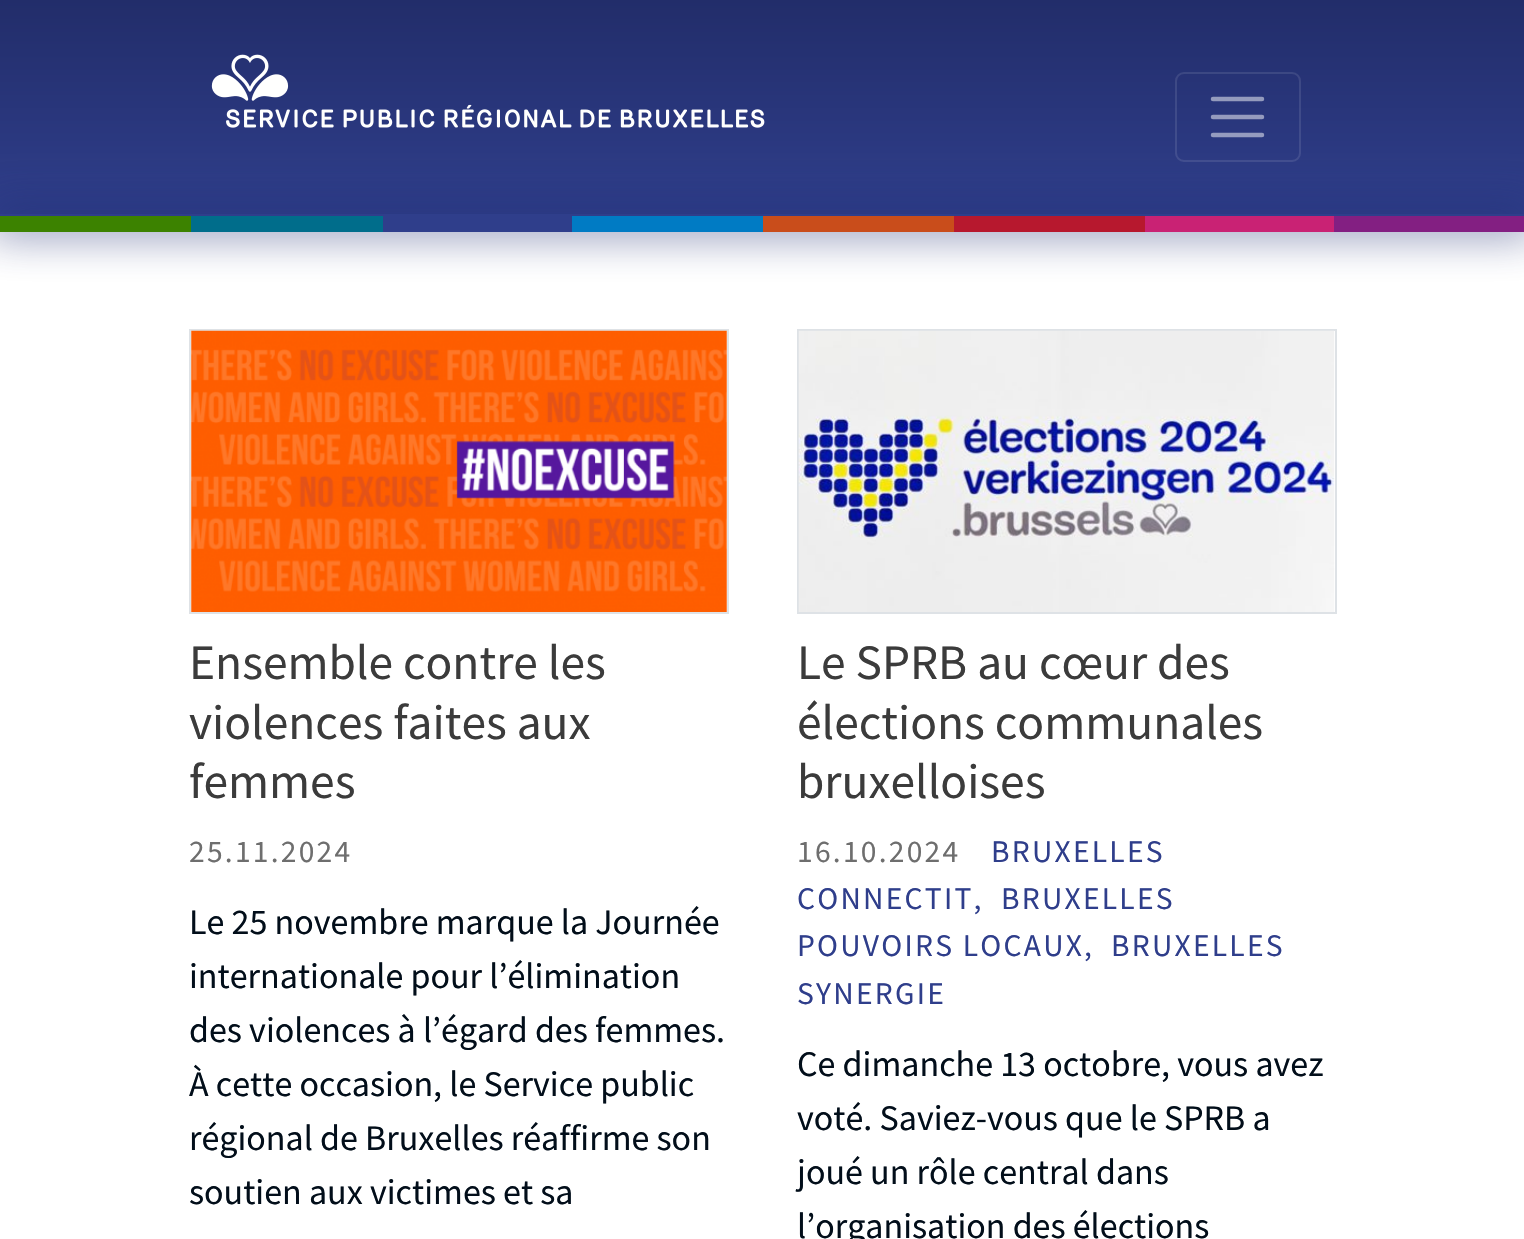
void draw(SkCanvas* canvas) {
    SkPaint paint;
    paint.setAntiAlias(true);
    auto spacedText = [&](const char* s, float x, float y, const SkFont& font, const SkPaint& ink, float letter, float word) {
        std::vector<SkGlyphID> glyphs(font.countText(s, strlen(s), SkTextEncoding::kUTF8));
        std::vector<float> xs(glyphs.size());
        font.textToGlyphs(s, strlen(s), SkTextEncoding::kUTF8, glyphs);
        font.getXPos(glyphs, xs, x);
        float extra = 0;
        for (size_t i = 0; i < glyphs.size(); i++) {
            xs[i] += extra;
            extra += letter + word * (glyphs[i] == font.unicharToGlyph(' '));
        }
        canvas->drawTextBlob(SkTextBlob::MakeFromPosHGlyphs(glyphs, xs, y, font), 0, 0, ink);
    };
    canvas->clear(0xFFFFFFFF);
    {
        const SkColor colors[] = {0xFF2F3E8B, 0xFF222D6A};
        const float stops[] = {0.07f, 1};
        const SkPoint ends[] = {{763, 232}, {763, 0}};
        paint.setShader(SkGradientShader::MakeLinear(ends, colors, stops, 2, SkTileMode::kClamp));
        paint.setAlpha(255);
    }
    canvas->drawRect(SkRect::MakeXYWH(0, 0, 1524, 216), paint);
    canvas->drawImageRect(SkImages::DeferredFromEncodedData(SkData::MakeFromFileName("img1.png")), SkRect::MakeXYWH(211, 54, 554, 74), SkSamplingOptions());
    canvas->save();
    canvas->clipPath(SkPathBuilder(SkPathFillType::kEvenOdd).moveTo(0, 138).lineTo(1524, 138).lineTo(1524, 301).lineTo(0, 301).close().moveTo(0, 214).lineTo(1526, 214).lineTo(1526, 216).lineTo(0, 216).close().detach(), true);
    paint.setShader(nullptr);
    paint.setColor(0xB31E2C70);
    paint.setMaskFilter(SkMaskFilter::MakeBlur(kNormal_SkBlurStyle, 22.5f));
    canvas->drawRect(SkRect::MakeXYWH(-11, 207, 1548, 25), paint);
    paint.setMaskFilter(nullptr);
    canvas->restore();
    paint.setStyle(SkPaint::kStroke_Style);
    paint.setStrokeWidth(2);
    paint.setColor(0x1AFFFFFF);
    canvas->drawRoundRect(SkRect::MakeXYWH(1176, 73, 124, 88), 8, 8, paint);
    paint.setStrokeWidth(4.5f);
    paint.setStrokeCap(SkPaint::kRound_Cap);
    paint.setColor(0x80FFFFFF);
    canvas->drawPath(SkPathBuilder().moveTo(1213, 99).lineTo(1262, 99).moveTo(1213, 117).lineTo(1262, 117).moveTo(1213, 135).lineTo(1262, 135).detach(), paint);
    paint.setStyle(SkPaint::kFill_Style);
    paint.setColor(0xFF3C8200);
    canvas->drawRect(SkRect::MakeXYWH(0, 216, 191, 16), paint);
    paint.setColor(0xFF006D8B);
    canvas->drawRect(SkRect::MakeXYWH(191, 216, 192, 16), paint);
    paint.setColor(0xFF2F3E8B);
    canvas->drawRect(SkRect::MakeXYWH(383, 216, 189, 16), paint);
    paint.setColor(0xFF007BC4);
    canvas->drawRect(SkRect::MakeXYWH(572, 216, 191, 16), paint);
    paint.setColor(0xFFC94D1B);
    canvas->drawRect(SkRect::MakeXYWH(763, 216, 191, 16), paint);
    paint.setColor(0xFFB7182E);
    canvas->drawRect(SkRect::MakeXYWH(954, 216, 191, 16), paint);
    paint.setColor(0xFFC92274);
    canvas->drawRect(SkRect::MakeXYWH(1145, 216, 189, 16), paint);
    paint.setColor(0xFF831F82);
    canvas->drawRect(SkRect::MakeXYWH(1334, 216, 190, 16), paint);
    paint.setStyle(SkPaint::kStroke_Style);
    paint.setStrokeWidth(2);
    paint.setStrokeCap(SkPaint::kButt_Cap);
    paint.setColor(0xFFDEE2E6);
    canvas->drawRect(SkRect::MakeXYWH(190, 330, 538, 283), paint);
    canvas->drawImageRect(SkImages::DeferredFromEncodedData(SkData::MakeFromFileName("img2.png")), SkRect::MakeXYWH(191, 330, 536, 282), SkSamplingOptions());
    SkFont font1(fontMgr->matchFamilyStyle("Source Sans Pro", SkFontStyle::Normal()), 49.5f);
    font1.setSubpixel(true);
    paint.setStyle(SkPaint::kFill_Style);
    paint.setColor(0xFF3B3B3B);
    canvas->drawString("Ensemble contre les", 189, 679, font1, paint);
    canvas->drawString("violences faites aux", 189, 739, font1, paint);
    canvas->drawString("femmes", 189, 798, font1, paint);
    SkFont font2(fontMgr->matchFamilyStyle("Source Sans Pro", SkFontStyle::Normal()), 31.5f);
    font2.setSubpixel(true);
    paint.setColor(0xFF6E6E6E);
    spacedText("25.11.2024", 189, 862, font2, paint, 2.25f, 0);
    SkFont font3(fontMgr->matchFamilyStyle("Source Sans Pro", SkFontStyle::Normal()), 36);
    font3.setSubpixel(true);
    paint.setColor(0xFF020E1A);
    canvas->drawString("Le 25 novembre marque la Journée", 189, 934, font3, paint);
    canvas->drawString("internationale pour l’élimination", 189, 988, font3, paint);
    canvas->drawString("des violences à l’égard des femmes.", 189, 1042, font3, paint);
    canvas->drawString("À cette occasion, le Service public", 189, 1096, font3, paint);
    canvas->drawString("régional de Bruxelles réaffirme son", 189, 1150, font3, paint);
    canvas->drawString("soutien aux victimes et sa", 189, 1204, font3, paint);
    paint.setStyle(SkPaint::kStroke_Style);
    paint.setColor(0xFFDEE2E6);
    canvas->drawRect(SkRect::MakeXYWH(798, 330, 538, 283), paint);
    canvas->drawImageRect(SkImages::DeferredFromEncodedData(SkData::MakeFromFileName("img3.png")), SkRect::MakeXYWH(798, 330, 537, 282), SkSamplingOptions());
    paint.setStyle(SkPaint::kFill_Style);
    paint.setColor(0xFF3B3B3B);
    canvas->drawString("Le SPRB au cœur des", 797, 679, font1, paint);
    canvas->drawString("élections communales", 797, 739, font1, paint);
    canvas->drawString("bruxelloises", 797, 798, font1, paint);
    paint.setColor(0xFF6E6E6E);
    spacedText("16.10.2024", 797, 862, font2, paint, 2.25f, 0);
    paint.setColor(0xFF2F3E8B);
    spacedText("BRUXELLES", 991, 862, font2, paint, 2.25f, 0);
    spacedText("CONNECTIT,", 797, 909, font2, paint, 2.25f, 0);
    spacedText("BRUXELLES", 1001, 909, font2, paint, 2.25f, 0);
    spacedText("POUVOIRS LOCAUX,", 797, 956, font2, paint, 2.25f, 0);
    spacedText("BRUXELLES", 1111, 956, font2, paint, 2.25f, 0);
    spacedText("SYNERGIE", 797, 1004, font2, paint, 2.25f, 0);
    paint.setColor(0xFF020E1A);
    canvas->drawString("Ce dimanche 13 octobre, vous avez", 797, 1076, font3, paint);
    canvas->drawString("voté. Saviez-vous que le SPRB a", 797, 1130, font3, paint);
    canvas->drawString("joué un rôle central dans", 797, 1184, font3, paint);
    canvas->drawString("l’organisation des élections", 797, 1238, font3, paint);
}
